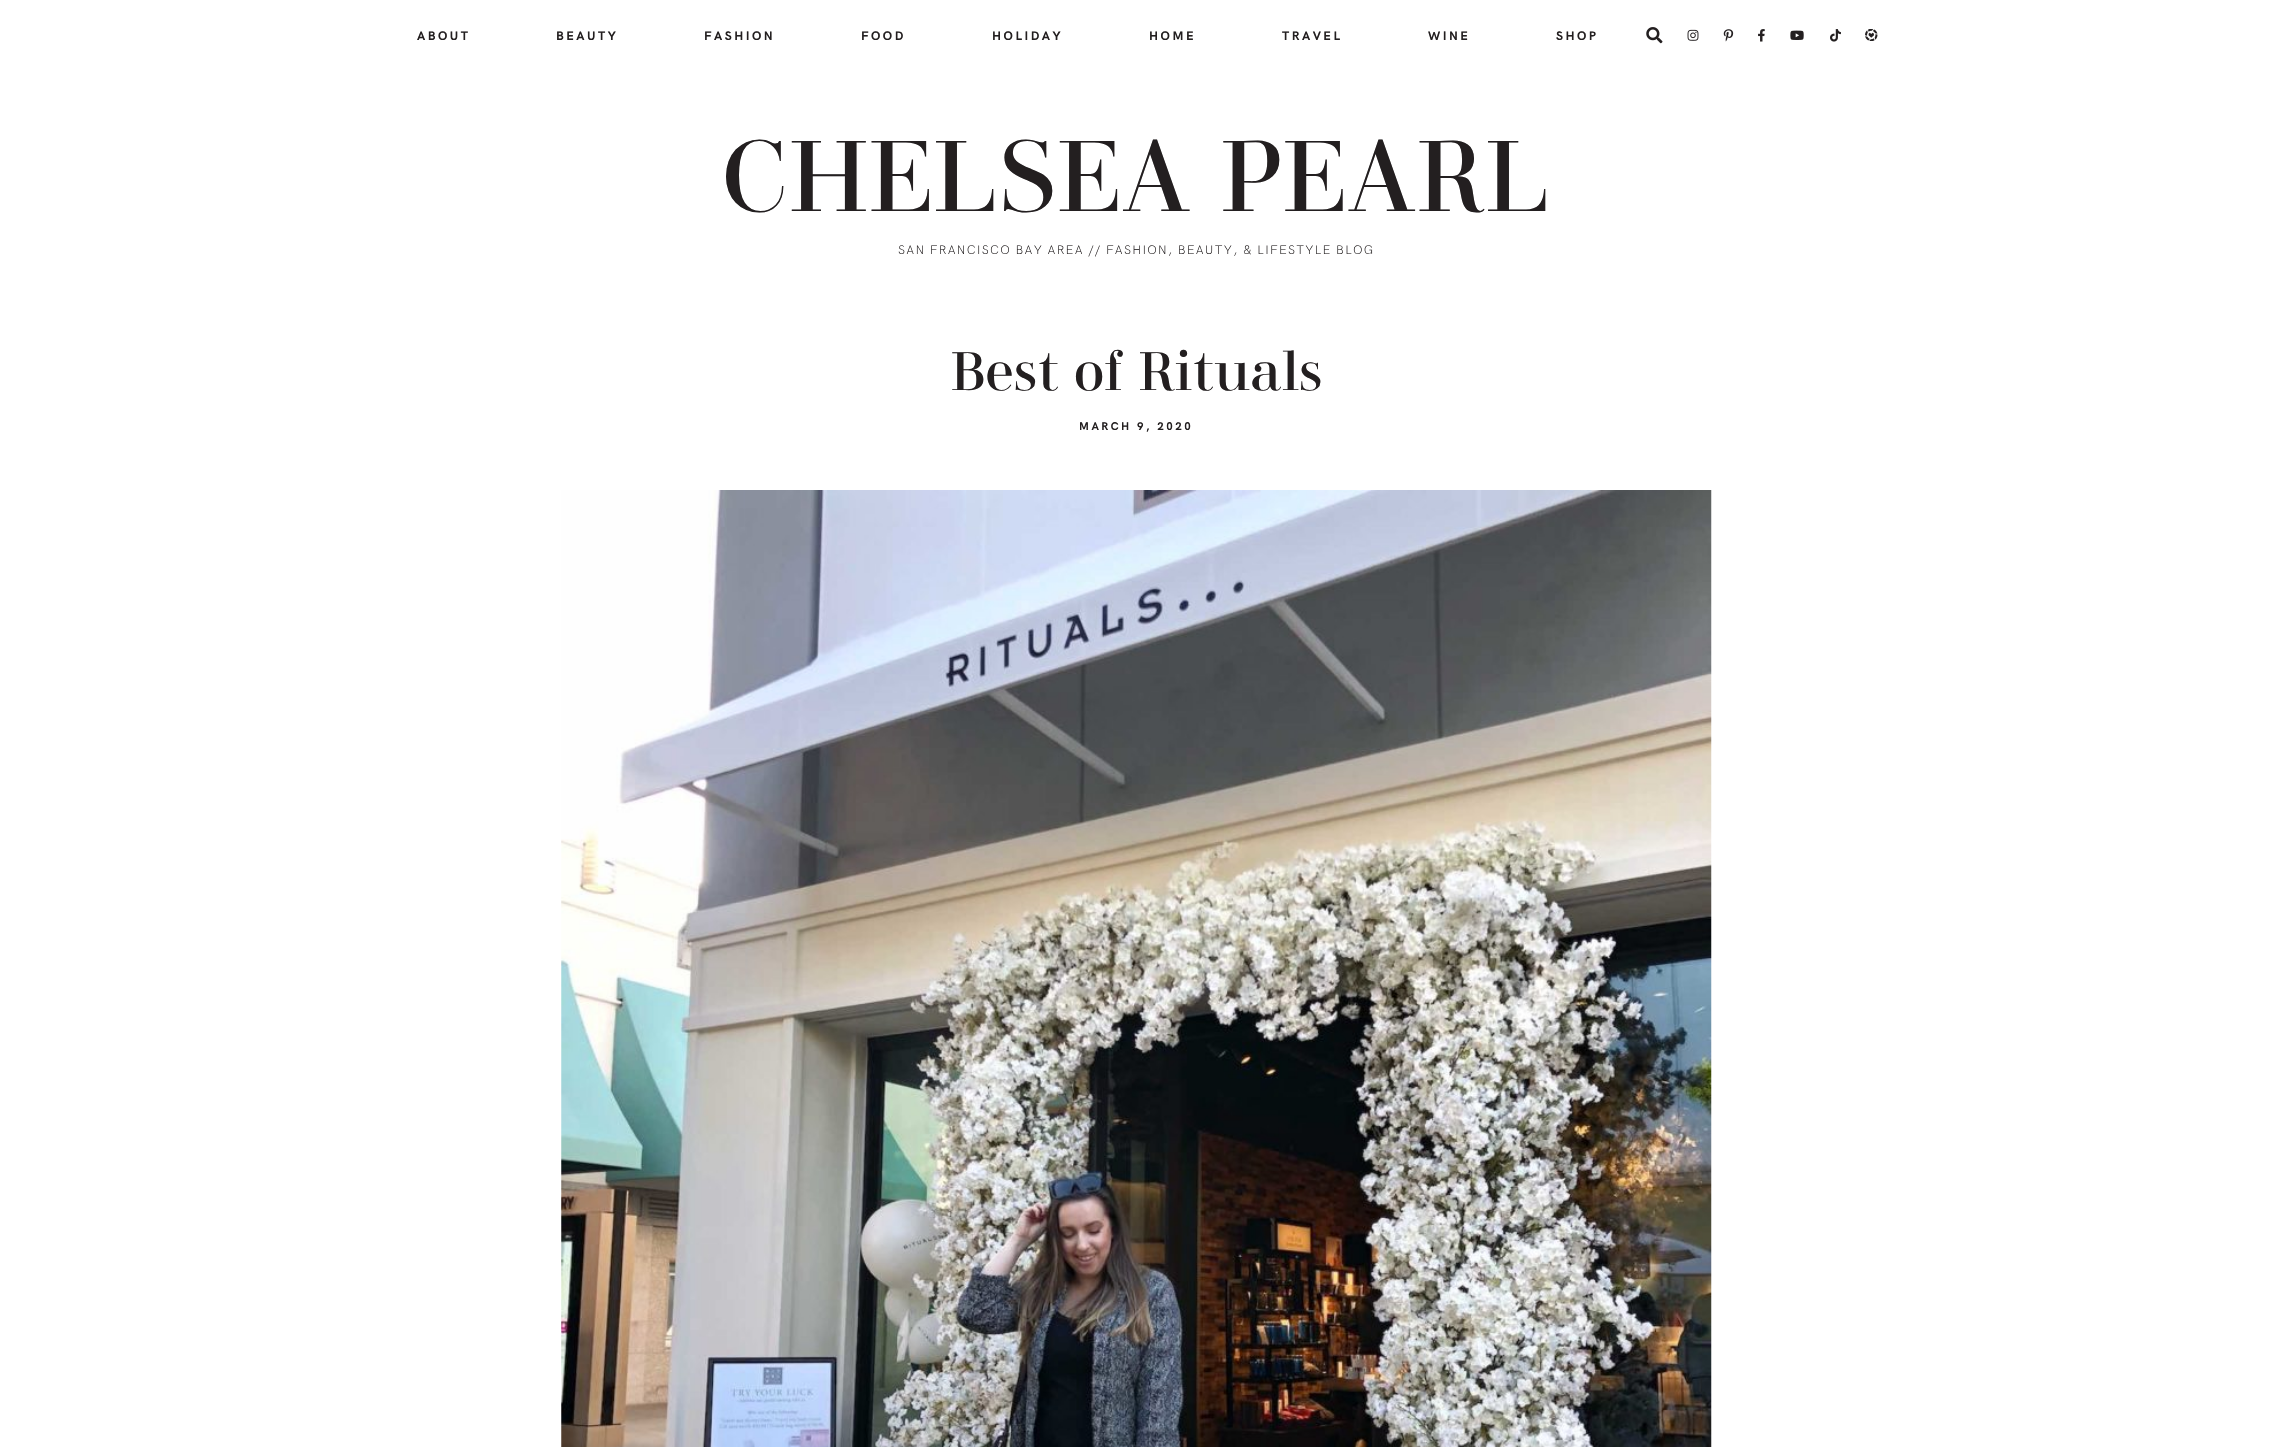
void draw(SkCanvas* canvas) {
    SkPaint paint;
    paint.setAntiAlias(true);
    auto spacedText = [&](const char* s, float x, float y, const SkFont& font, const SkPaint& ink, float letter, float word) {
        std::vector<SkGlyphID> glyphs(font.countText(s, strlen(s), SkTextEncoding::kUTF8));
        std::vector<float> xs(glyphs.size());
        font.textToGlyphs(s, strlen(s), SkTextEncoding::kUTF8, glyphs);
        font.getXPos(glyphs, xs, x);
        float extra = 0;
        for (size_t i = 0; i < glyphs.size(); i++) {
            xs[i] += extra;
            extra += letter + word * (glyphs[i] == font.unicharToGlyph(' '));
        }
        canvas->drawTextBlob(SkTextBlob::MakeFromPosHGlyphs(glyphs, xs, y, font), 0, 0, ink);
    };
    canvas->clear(0xFFFFFFFF);
    SkFont font1(fontMgr->matchFamilyStyle("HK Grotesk", SkFontStyle::Bold()), 12.5f);
    font1.setSubpixel(true);
    paint.setColor(0xFF231F20);
    spacedText("ABOUT", 417, 40, font1, paint, 2.5f, 0);
    spacedText("BEAUTY", 556, 40, font1, paint, 2.5f, 0);
    spacedText("FASHION", 704, 40, font1, paint, 2.5f, 0);
    spacedText("FOOD", 861, 40, font1, paint, 2.5f, 0);
    spacedText("HOLIDAY", 992, 40, font1, paint, 2.5f, 0);
    spacedText("HOME", 1149, 40, font1, paint, 2.5f, 0);
    spacedText("TRAVEL", 1282, 40, font1, paint, 2.5f, 0);
    spacedText("WINE", 1428, 40, font1, paint, 2.5f, 0);
    spacedText("SHOP", 1556, 40, font1, paint, 2.5f, 0);
    canvas->drawImageRect(SkImages::DeferredFromEncodedData(SkData::MakeFromFileName("img1.png")), SkRect::MakeXYWH(1646, 27, 17, 17), SkSamplingOptions());
    canvas->drawImageRect(SkImages::DeferredFromEncodedData(SkData::MakeFromFileName("img2.png")), SkRect::MakeXYWH(1687, 29, 12, 12), SkSamplingOptions());
    canvas->drawImageRect(SkImages::DeferredFromEncodedData(SkData::MakeFromFileName("img3.png")), SkRect::MakeXYWH(1723, 29, 11, 13), SkSamplingOptions());
    canvas->drawImageRect(SkImages::DeferredFromEncodedData(SkData::MakeFromFileName("img4.png")), SkRect::MakeXYWH(1758, 29, 7, 13), SkSamplingOptions());
    canvas->drawImageRect(SkImages::DeferredFromEncodedData(SkData::MakeFromFileName("img5.png")), SkRect::MakeXYWH(1790, 30, 14, 10), SkSamplingOptions());
    canvas->drawImageRect(SkImages::DeferredFromEncodedData(SkData::MakeFromFileName("img6.png")), SkRect::MakeXYWH(1830, 29, 11, 13), SkSamplingOptions());
    canvas->drawImageRect(SkImages::DeferredFromEncodedData(SkData::MakeFromFileName("img7.png")), SkRect::MakeXYWH(1865, 29, 13, 12), SkSamplingOptions());
    SkFont font2(fontMgr->matchFamilyStyle("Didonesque", SkFontStyle::Normal()), 100);
    font2.setSubpixel(true);
    spacedText("CHELSEA PEARL", 722, 211, font2, paint, 1.25f, 0);
    SkFont font3(fontMgr->matchFamilyStyle("HK Grotesk", SkFontStyle(300, SkFontStyle::kNormal_Width, SkFontStyle::kUpright_Slant)), 12.5f);
    font3.setSubpixel(true);
    spacedText("SAN FRANCISCO BAY AREA // FASHION, BEAUTY, & LIFESTYLE BLOG", 898, 254, font3, paint, 1.25f, 0);
    SkFont font4(fontMgr->matchFamilyStyle("Didonesque", SkFontStyle::Normal()), 53.75f);
    font4.setSubpixel(true);
    canvas->drawString("Best of Rituals", 951, 390, font4, paint);
    SkFont font5(fontMgr->matchFamilyStyle("HK Grotesk", SkFontStyle::Bold()), 11.25f);
    font5.setSubpixel(true);
    spacedText("MARCH 9, 2020", 1079, 430, font5, paint, 2.5f, 0);
    canvas->drawImageRect(SkImages::DeferredFromEncodedData(SkData::MakeFromFileName("img8.png")), SkRect::MakeXYWH(561, 490, 1151, 957), SkSamplingOptions());
}
